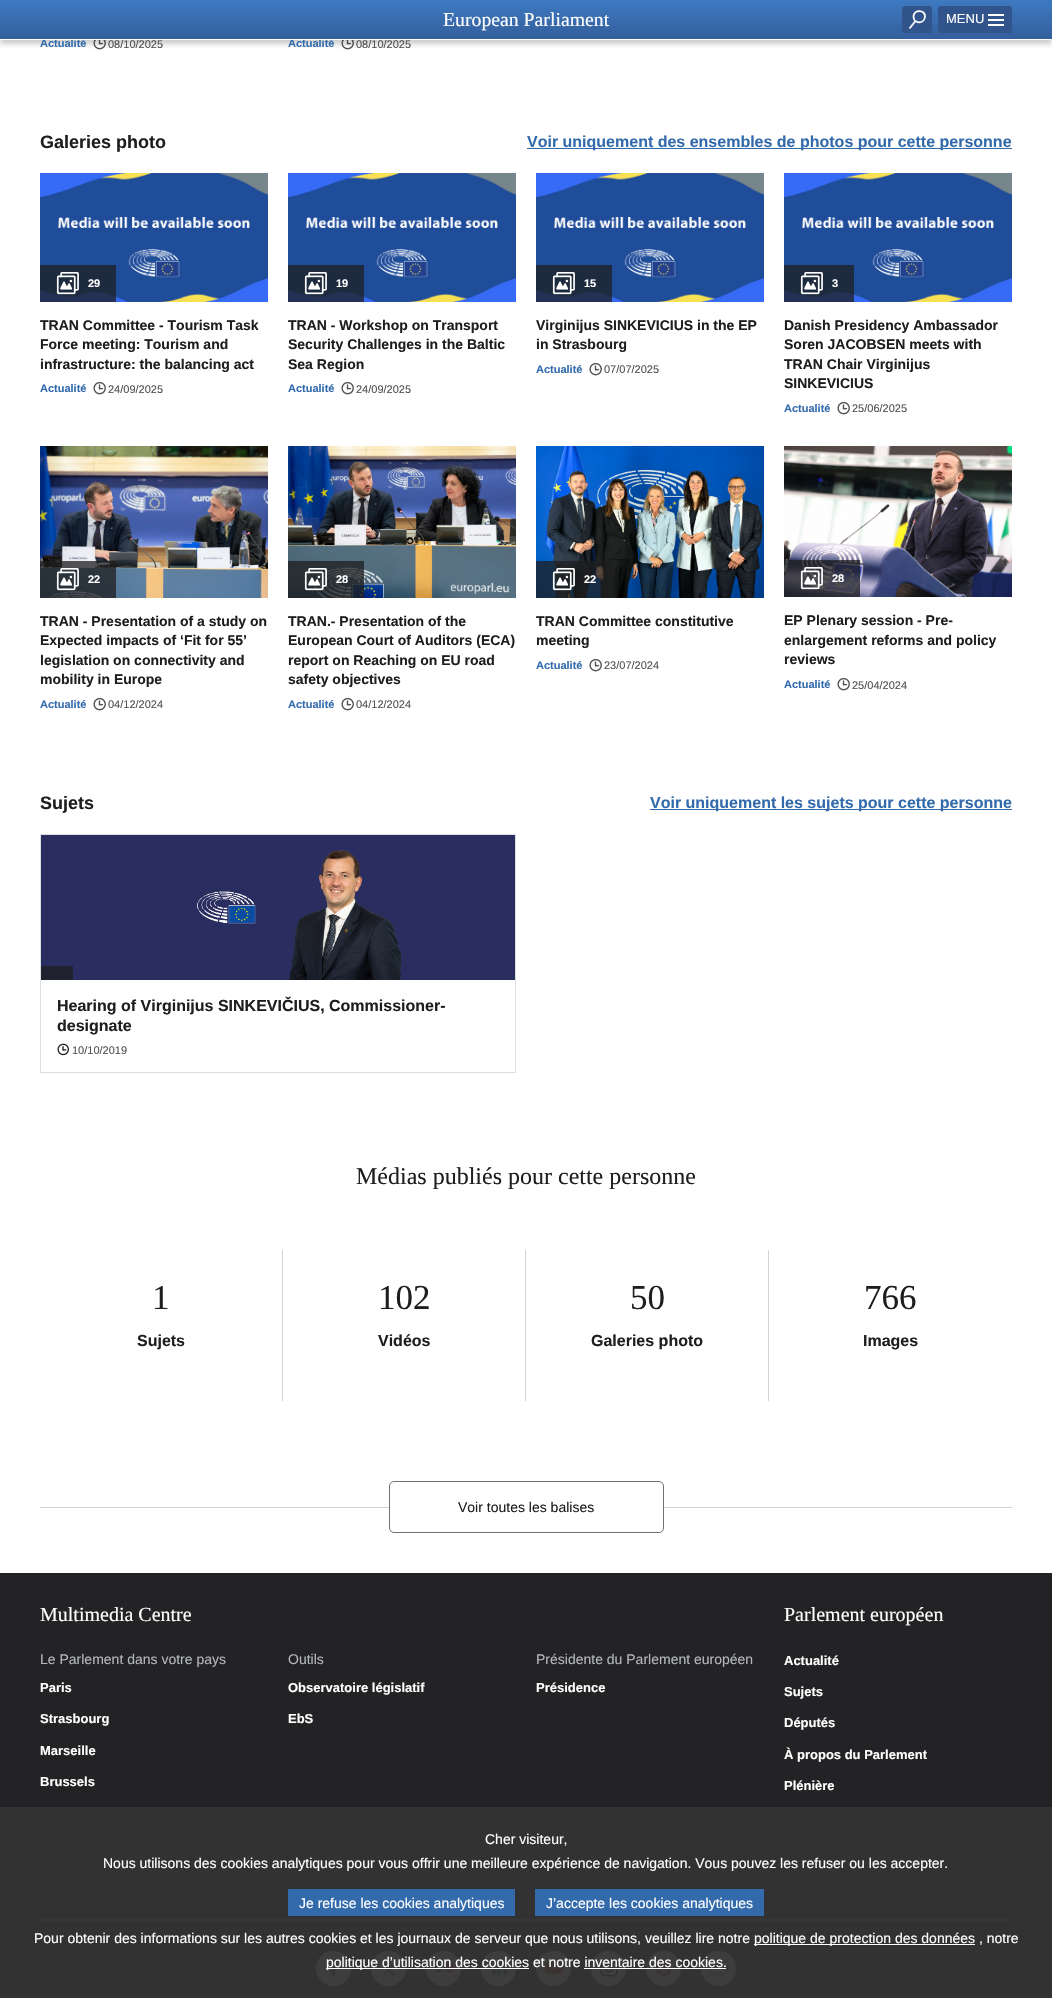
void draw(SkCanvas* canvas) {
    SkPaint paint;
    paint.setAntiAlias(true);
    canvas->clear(0xFFFFFFFF);
    canvas->drawImageRect(SkImages::DeferredFromEncodedData(SkData::MakeFromFileName("img1.png")), SkRect::MakeXYWH(93, 40, 13, 10), SkSamplingOptions());
    canvas->drawImageRect(SkImages::DeferredFromEncodedData(SkData::MakeFromFileName("img1.png")), SkRect::MakeXYWH(341, 40, 13, 10), SkSamplingOptions());
    paint.setColor(0x33000000);
    paint.setMaskFilter(SkMaskFilter::MakeBlur(kNormal_SkBlurStyle, 2.5f));
    canvas->drawRect(SkRect::MakeXYWH(0, 4, 1052, 40), paint);
    paint.setMaskFilter(nullptr);
    SkFont font1(fontMgr->matchFamilyStyle("Liberation Sans", SkFontStyle::Bold()), 11);
    font1.setSubpixel(true);
    paint.setColor(0xFF326AAB);
    canvas->drawString("Actualité", 40, 47, font1, paint);
    canvas->drawString("Actualité", 288, 47, font1, paint);
    {
        const SkColor colors[] = {0xFF3D7AC1, 0xFF345E9C};
        const float stops[] = {0, 1};
        const SkPoint ends[] = {{526, 0}, {526, 39}};
        paint.setShader(SkGradientShader::MakeLinear(ends, colors, stops, 2, SkTileMode::kClamp));
        paint.setAlpha(255);
    }
    canvas->drawRect(SkRect::MakeXYWH(0, 0, 1052, 39), paint);
    paint.setShader(nullptr);
    paint.setColor(0xFFFFFFFF);
    canvas->drawRect(SkRect::MakeXYWH(0, 39, 1052, 1), paint);
    SkFont font2(fontMgr->matchFamilyStyle("Liberation Serif", SkFontStyle::Normal()), 19.75f);
    font2.setSubpixel(true);
    canvas->drawString("European Parliament", 443, 26, font2, paint);
    paint.setColor(0xFF32548D);
    canvas->drawRoundRect(SkRect::MakeXYWH(902, 6, 30, 27), 3, 3, paint);
    paint.setStyle(SkPaint::kStroke_Style);
    paint.setStrokeWidth(1.8f);
    paint.setColor(0xFFFFFFFF);
    canvas->drawPath(SkPathBuilder().moveTo(913.5f, 16.5f).cubicTo(913.5f, 24, 924.5f, 24.5f, 925, 16.5f).cubicTo(925.5f, 9.5f, 913.5f, 9, 913.5f, 16.5f).close().moveTo(915.5f, 21).lineTo(909.5f, 28.5f).detach(), paint);
    paint.setStyle(SkPaint::kFill_Style);
    paint.setColor(0xFF32548D);
    canvas->drawRoundRect(SkRect::MakeXYWH(938, 6, 74, 27), 3, 3, paint);
    SkFont font3(fontMgr->matchFamilyStyle("Liberation Sans", SkFontStyle::Normal()), 13);
    font3.setSubpixel(true);
    paint.setColor(0xFFFFFFFF);
    canvas->drawString("MENU", 946, 23, font3, paint);
    canvas->drawRect(SkRect::MakeXYWH(988, 14, 16, 2), paint);
    canvas->drawRect(SkRect::MakeXYWH(988, 19, 16, 2), paint);
    canvas->drawRect(SkRect::MakeXYWH(988, 24, 16, 2), paint);
    SkFont font4(fontMgr->matchFamilyStyle("Liberation Sans", SkFontStyle::Normal()), 11);
    font4.setSubpixel(true);
    paint.setColor(0xFF505153);
    canvas->drawString("08/10/2025", 108, 48, font4, paint);
    canvas->drawString("08/10/2025", 356, 48, font4, paint);
    SkFont font5(fontMgr->matchFamilyStyle("Liberation Sans", SkFontStyle::Bold()), 18);
    font5.setSubpixel(true);
    paint.setColor(0xFF1E1E1F);
    canvas->drawString("Galeries photo", 40, 148, font5, paint);
    paint.setColor(0xFF326AAB);
    canvas->drawRect(SkRect::MakeXYWH(527, 148, 485, 1), paint);
    SkFont font6(fontMgr->matchFamilyStyle("Liberation Sans", SkFontStyle::Bold()), 16);
    font6.setSubpixel(true);
    canvas->drawString("Voir uniquement des ensembles de photos pour cette personne", 527, 147, font6, paint);
    canvas->drawImageRect(SkImages::DeferredFromEncodedData(SkData::MakeFromFileName("img2.png")), SkRect::MakeXYWH(40, 173, 228, 129), SkSamplingOptions());
    paint.setColor(0xBF1E1E1F);
    canvas->drawRect(SkRect::MakeXYWH(40, 265, 76, 37), paint);
    canvas->drawImageRect(SkImages::DeferredFromEncodedData(SkData::MakeFromFileName("img3.png")), SkRect::MakeXYWH(56, 272, 23, 23), SkSamplingOptions());
    paint.setColor(0xFFFFFFFF);
    canvas->drawString("29", 88, 287, font1, paint);
    SkFont font7(fontMgr->matchFamilyStyle("Liberation Sans", SkFontStyle::Bold()), 14);
    font7.setSubpixel(true);
    paint.setColor(0xFF1E1E1F);
    canvas->drawString("TRAN Committee - Tourism Task", 40, 330, font7, paint);
    canvas->drawString("Force meeting: Tourism and", 40, 349, font7, paint);
    canvas->drawString("infrastructure: the balancing act", 40, 369, font7, paint);
    paint.setColor(0xFF326AAB);
    canvas->drawString("Actualité", 40, 392, font1, paint);
    canvas->drawImageRect(SkImages::DeferredFromEncodedData(SkData::MakeFromFileName("img4.png")), SkRect::MakeXYWH(93, 381, 13, 14), SkSamplingOptions());
    paint.setColor(0xFF505153);
    canvas->drawString("24/09/2025", 108, 393, font4, paint);
    canvas->drawImageRect(SkImages::DeferredFromEncodedData(SkData::MakeFromFileName("img2.png")), SkRect::MakeXYWH(288, 173, 228, 129), SkSamplingOptions());
    paint.setColor(0xBF1E1E1F);
    canvas->drawRect(SkRect::MakeXYWH(288, 265, 76, 37), paint);
    canvas->drawImageRect(SkImages::DeferredFromEncodedData(SkData::MakeFromFileName("img3.png")), SkRect::MakeXYWH(304, 272, 23, 23), SkSamplingOptions());
    paint.setColor(0xFFFFFFFF);
    canvas->drawString("19", 336, 287, font1, paint);
    paint.setColor(0xFF1E1E1F);
    canvas->drawString("TRAN - Workshop on Transport", 288, 330, font7, paint);
    canvas->drawString("Security Challenges in the Baltic", 288, 349, font7, paint);
    canvas->drawString("Sea Region", 288, 369, font7, paint);
    paint.setColor(0xFF326AAB);
    canvas->drawString("Actualité", 288, 392, font1, paint);
    canvas->drawImageRect(SkImages::DeferredFromEncodedData(SkData::MakeFromFileName("img4.png")), SkRect::MakeXYWH(341, 381, 13, 14), SkSamplingOptions());
    paint.setColor(0xFF505153);
    canvas->drawString("24/09/2025", 356, 393, font4, paint);
    canvas->drawImageRect(SkImages::DeferredFromEncodedData(SkData::MakeFromFileName("img5.png")), SkRect::MakeXYWH(536, 173, 228, 129), SkSamplingOptions());
    paint.setColor(0xBF1E1E1F);
    canvas->drawRect(SkRect::MakeXYWH(536, 265, 76, 37), paint);
    canvas->drawImageRect(SkImages::DeferredFromEncodedData(SkData::MakeFromFileName("img3.png")), SkRect::MakeXYWH(552, 272, 23, 23), SkSamplingOptions());
    paint.setColor(0xFFFFFFFF);
    canvas->drawString("15", 584, 287, font1, paint);
    paint.setColor(0xFF1E1E1F);
    canvas->drawString("Virginijus SINKEVICIUS in the EP", 536, 330, font7, paint);
    canvas->drawString("in Strasbourg", 536, 349, font7, paint);
    paint.setColor(0xFF326AAB);
    canvas->drawString("Actualité", 536, 373, font1, paint);
    canvas->drawImageRect(SkImages::DeferredFromEncodedData(SkData::MakeFromFileName("img4.png")), SkRect::MakeXYWH(589, 362, 13, 14), SkSamplingOptions());
    paint.setColor(0xFF505153);
    canvas->drawString("07/07/2025", 604, 373, font4, paint);
    canvas->drawImageRect(SkImages::DeferredFromEncodedData(SkData::MakeFromFileName("img5.png")), SkRect::MakeXYWH(784, 173, 228, 129), SkSamplingOptions());
    paint.setColor(0xBF1E1E1F);
    canvas->drawRect(SkRect::MakeXYWH(784, 265, 70, 37), paint);
    canvas->drawImageRect(SkImages::DeferredFromEncodedData(SkData::MakeFromFileName("img3.png")), SkRect::MakeXYWH(800, 272, 23, 23), SkSamplingOptions());
    paint.setColor(0xFFFFFFFF);
    canvas->drawString("3", 832, 287, font1, paint);
    paint.setColor(0xFF1E1E1F);
    canvas->drawString("Danish Presidency Ambassador", 784, 330, font7, paint);
    canvas->drawString("Soren JACOBSEN meets with", 784, 349, font7, paint);
    canvas->drawString("TRAN Chair Virginijus", 784, 369, font7, paint);
    canvas->drawString("SINKEVICIUS", 784, 388, font7, paint);
    paint.setColor(0xFF326AAB);
    canvas->drawString("Actualité", 784, 412, font1, paint);
    canvas->drawImageRect(SkImages::DeferredFromEncodedData(SkData::MakeFromFileName("img4.png")), SkRect::MakeXYWH(837, 401, 13, 14), SkSamplingOptions());
    paint.setColor(0xFF505153);
    canvas->drawString("25/06/2025", 852, 412, font4, paint);
    canvas->drawImageRect(SkImages::DeferredFromEncodedData(SkData::MakeFromFileName("img6.png")), SkRect::MakeXYWH(40, 446, 228, 152), SkSamplingOptions());
    paint.setColor(0xBF1E1E1F);
    canvas->drawRect(SkRect::MakeXYWH(40, 561, 76, 37), paint);
    canvas->drawImageRect(SkImages::DeferredFromEncodedData(SkData::MakeFromFileName("img7.png")), SkRect::MakeXYWH(56, 568, 23, 23), SkSamplingOptions());
    paint.setColor(0xFFFFFFFF);
    canvas->drawString("22", 88, 583, font1, paint);
    paint.setColor(0xFF1E1E1F);
    canvas->drawString("TRAN - Presentation of a study on", 40, 626, font7, paint);
    canvas->drawString("Expected impacts of ‘Fit for 55’", 40, 645, font7, paint);
    canvas->drawString("legislation on connectivity and", 40, 665, font7, paint);
    canvas->drawString("mobility in Europe", 40, 684, font7, paint);
    paint.setColor(0xFF326AAB);
    canvas->drawString("Actualité", 40, 708, font1, paint);
    canvas->drawImageRect(SkImages::DeferredFromEncodedData(SkData::MakeFromFileName("img4.png")), SkRect::MakeXYWH(93, 697, 13, 14), SkSamplingOptions());
    paint.setColor(0xFF505153);
    canvas->drawString("04/12/2024", 108, 708, font4, paint);
    canvas->drawImageRect(SkImages::DeferredFromEncodedData(SkData::MakeFromFileName("img8.png")), SkRect::MakeXYWH(288, 446, 228, 152), SkSamplingOptions());
    paint.setColor(0xBF1E1E1F);
    canvas->drawRect(SkRect::MakeXYWH(288, 561, 76, 37), paint);
    canvas->drawImageRect(SkImages::DeferredFromEncodedData(SkData::MakeFromFileName("img9.png")), SkRect::MakeXYWH(304, 568, 23, 23), SkSamplingOptions());
    paint.setColor(0xFFFFFFFF);
    canvas->drawString("28", 336, 583, font1, paint);
    paint.setColor(0xFF1E1E1F);
    canvas->drawString("TRAN.- Presentation of the", 288, 626, font7, paint);
    canvas->drawString("European Court of Auditors (ECA)", 288, 645, font7, paint);
    canvas->drawString("report on Reaching on EU road", 288, 665, font7, paint);
    canvas->drawString("safety objectives", 288, 684, font7, paint);
    paint.setColor(0xFF326AAB);
    canvas->drawString("Actualité", 288, 708, font1, paint);
    canvas->drawImageRect(SkImages::DeferredFromEncodedData(SkData::MakeFromFileName("img4.png")), SkRect::MakeXYWH(341, 697, 13, 14), SkSamplingOptions());
    paint.setColor(0xFF505153);
    canvas->drawString("04/12/2024", 356, 708, font4, paint);
    canvas->drawImageRect(SkImages::DeferredFromEncodedData(SkData::MakeFromFileName("img10.png")), SkRect::MakeXYWH(536, 446, 228, 152), SkSamplingOptions());
    paint.setColor(0xBF1E1E1F);
    canvas->drawRect(SkRect::MakeXYWH(536, 561, 76, 37), paint);
    canvas->drawImageRect(SkImages::DeferredFromEncodedData(SkData::MakeFromFileName("img11.png")), SkRect::MakeXYWH(552, 568, 23, 23), SkSamplingOptions());
    paint.setColor(0xFFFFFFFF);
    canvas->drawString("22", 584, 583, font1, paint);
    paint.setColor(0xFF1E1E1F);
    canvas->drawString("TRAN Committee constitutive", 536, 626, font7, paint);
    canvas->drawString("meeting", 536, 645, font7, paint);
    paint.setColor(0xFF326AAB);
    canvas->drawString("Actualité", 536, 669, font1, paint);
    canvas->drawImageRect(SkImages::DeferredFromEncodedData(SkData::MakeFromFileName("img4.png")), SkRect::MakeXYWH(589, 658, 13, 14), SkSamplingOptions());
    paint.setColor(0xFF505153);
    canvas->drawString("23/07/2024", 604, 669, font4, paint);
    canvas->drawImageRect(SkImages::DeferredFromEncodedData(SkData::MakeFromFileName("img12.png")), SkRect::MakeXYWH(784, 446, 228, 151), SkSamplingOptions());
    paint.setColor(0xBF1E1E1F);
    canvas->drawRect(SkRect::MakeXYWH(784, 560, 76, 37), paint);
    canvas->drawImageRect(SkImages::DeferredFromEncodedData(SkData::MakeFromFileName("img13.png")), SkRect::MakeXYWH(800, 567, 23, 23), SkSamplingOptions());
    paint.setColor(0xFFFFFFFF);
    canvas->drawString("28", 832, 582, font1, paint);
    paint.setColor(0xFF1E1E1F);
    canvas->drawString("EP Plenary session - Pre-", 784, 625, font7, paint);
    canvas->drawString("enlargement reforms and policy", 784, 645, font7, paint);
    canvas->drawString("reviews", 784, 664, font7, paint);
    paint.setColor(0xFF326AAB);
    canvas->drawString("Actualité", 784, 688, font1, paint);
    canvas->drawImageRect(SkImages::DeferredFromEncodedData(SkData::MakeFromFileName("img4.png")), SkRect::MakeXYWH(837, 677, 13, 14), SkSamplingOptions());
    paint.setColor(0xFF505153);
    canvas->drawString("25/04/2024", 852, 689, font4, paint);
    paint.setColor(0xFF1E1E1F);
    canvas->drawString("Sujets", 40, 809, font5, paint);
    paint.setColor(0xFF326AAB);
    canvas->drawRect(SkRect::MakeXYWH(650, 809, 362, 1), paint);
    canvas->drawString("Voir uniquement les sujets pour cette personne", 650, 808, font6, paint);
    paint.setStyle(SkPaint::kStroke_Style);
    paint.setStrokeWidth(1);
    paint.setColor(0xFFDCDEDF);
    canvas->drawRect(SkRect::MakeXYWH(40.5f, 834.5f, 475, 238), paint);
    canvas->drawImageRect(SkImages::DeferredFromEncodedData(SkData::MakeFromFileName("img14.png")), SkRect::MakeXYWH(41, 835, 474, 145), SkSamplingOptions());
    paint.setStyle(SkPaint::kFill_Style);
    paint.setColor(0xFF21222F);
    canvas->drawRect(SkRect::MakeXYWH(41, 966, 32, 14), paint);
    paint.setColor(0xFF1E1E1F);
    canvas->drawString("Hearing of Virginijus SINKEVIČIUS, Commissioner-", 57, 1011, font6, paint);
    canvas->drawString("designate", 57, 1031, font6, paint);
    canvas->drawImageRect(SkImages::DeferredFromEncodedData(SkData::MakeFromFileName("img15.png")), SkRect::MakeXYWH(57, 1043, 12, 13), SkSamplingOptions());
    paint.setColor(0xFF505153);
    canvas->drawString("10/10/2019", 72, 1054, font4, paint);
    SkFont font8(fontMgr->matchFamilyStyle("Liberation Serif", SkFontStyle::Normal()), 24);
    font8.setSubpixel(true);
    paint.setColor(0xFF1E1E1F);
    canvas->drawString("Médias publiés pour cette personne", 356, 1184, font8, paint);
    paint.setColor(0xFFD1D3D4);
    canvas->drawRect(SkRect::MakeXYWH(282, 1250, 1, 151), paint);
    SkFont font9(fontMgr->matchFamilyStyle("Liberation Serif", SkFontStyle::Normal()), 35);
    font9.setSubpixel(true);
    paint.setColor(0xFF1E1E1F);
    canvas->drawString("1", 152, 1309, font9, paint);
    canvas->drawString("Sujets", 137, 1346, font6, paint);
    paint.setColor(0xFFD1D3D4);
    canvas->drawRect(SkRect::MakeXYWH(525, 1250, 1, 151), paint);
    paint.setColor(0xFF1E1E1F);
    canvas->drawString("102", 378, 1309, font9, paint);
    canvas->drawString("Vidéos", 378, 1346, font6, paint);
    paint.setColor(0xFFD1D3D4);
    canvas->drawRect(SkRect::MakeXYWH(768, 1250, 1, 151), paint);
    paint.setColor(0xFF1E1E1F);
    canvas->drawString("50", 630, 1309, font9, paint);
    canvas->drawString("Galeries photo", 591, 1346, font6, paint);
    canvas->drawString("766", 864, 1309, font9, paint);
    canvas->drawString("Images", 863, 1346, font6, paint);
    paint.setColor(0xFFD1D3D4);
    canvas->drawRect(SkRect::MakeXYWH(40, 1507, 972, 1), paint);
    paint.setColor(0xFFFFFFFF);
    canvas->drawRoundRect(SkRect::MakeXYWH(389.5f, 1481.5f, 274, 51), 4.5f, 4.5f, paint);
    paint.setStyle(SkPaint::kStroke_Style);
    paint.setColor(0xFF707070);
    canvas->drawRoundRect(SkRect::MakeXYWH(389.5f, 1481.5f, 274, 51), 4.5f, 4.5f, paint);
    SkFont font10(fontMgr->matchFamilyStyle("Liberation Sans", SkFontStyle::Normal()), 14);
    font10.setSubpixel(true);
    paint.setStyle(SkPaint::kFill_Style);
    paint.setColor(0xFF1E1E1F);
    canvas->drawString("Voir toutes les balises", 458, 1512, font10, paint);
    paint.setColor(0xFF232225);
    canvas->drawRect(SkRect::MakeXYWH(0, 1573, 1052, 234), paint);
    paint.setColor(0xFF323232);
    canvas->drawRect(SkRect::MakeXYWH(0, 1807, 1052, 191), paint);
    paint.setStyle(SkPaint::kStroke_Style);
    paint.setStrokeWidth(2);
    paint.setColor(0xFF3B3B3B);
    paint.setPathEffect(SkDashPathEffect::Make({{2, 2}}, 0));
    canvas->drawPath(SkPathBuilder().moveTo(40, 1920).lineTo(1012, 1920).detach(), paint);
    paint.setPathEffect(nullptr);
    SkFont font11(fontMgr->matchFamilyStyle("Liberation Serif", SkFontStyle::Normal()), 20);
    font11.setSubpixel(true);
    paint.setStyle(SkPaint::kFill_Style);
    paint.setColor(0xFFFFFFFF);
    canvas->drawString("Multimedia Centre", 40, 1621, font11, paint);
    paint.setColor(0xFFB5B9BA);
    canvas->drawString("Le Parlement dans votre pays", 40, 1664, font10, paint);
    SkFont font12(fontMgr->matchFamilyStyle("Liberation Sans", SkFontStyle::Bold()), 13);
    font12.setSubpixel(true);
    paint.setColor(0xFFFFFFFF);
    canvas->drawString("Paris", 40, 1692, font12, paint);
    canvas->drawString("Strasbourg", 40, 1723, font12, paint);
    canvas->drawString("Marseille", 40, 1755, font12, paint);
    canvas->drawString("Brussels", 40, 1786, font12, paint);
    paint.setColor(0xFFB5B9BA);
    canvas->drawString("Outils", 288, 1664, font10, paint);
    paint.setColor(0xFFFFFFFF);
    canvas->drawString("Observatoire législatif", 288, 1692, font12, paint);
    canvas->drawString("EbS", 288, 1723, font12, paint);
    paint.setColor(0xFFB5B9BA);
    canvas->drawString("Présidente du Parlement européen", 536, 1664, font10, paint);
    paint.setColor(0xFFFFFFFF);
    canvas->drawString("Présidence", 536, 1692, font12, paint);
    canvas->drawString("Parlement européen", 784, 1621, font11, paint);
    canvas->drawString("Actualité", 784, 1665, font12, paint);
    canvas->drawString("Sujets", 784, 1696, font12, paint);
    canvas->drawString("Députés", 784, 1727, font12, paint);
    canvas->drawString("À propos du Parlement", 784, 1759, font12, paint);
    canvas->drawString("Plénière", 784, 1790, font12, paint);
    paint.setColor(0xFF3D3D3D);
    canvas->drawCircle(333.5f, 1968.5f, 17.5f, paint);
    canvas->drawImageRect(SkImages::DeferredFromEncodedData(SkData::MakeFromFileName("img16.png")), SkRect::MakeXYWH(330, 1959, 8, 18), SkSamplingOptions());
    canvas->drawCircle(388.5f, 1968.5f, 17.5f, paint);
    canvas->drawImageRect(SkImages::DeferredFromEncodedData(SkData::MakeFromFileName("img17.png")), SkRect::MakeXYWH(383, 1963, 13, 12), SkSamplingOptions());
    canvas->drawCircle(443.5f, 1968.5f, 17.5f, paint);
    canvas->drawImageRect(SkImages::DeferredFromEncodedData(SkData::MakeFromFileName("img18.png")), SkRect::MakeXYWH(434, 1963, 20, 10), SkSamplingOptions());
    canvas->drawCircle(498.5f, 1968.5f, 17.5f, paint);
    canvas->drawImageRect(SkImages::DeferredFromEncodedData(SkData::MakeFromFileName("img19.png")), SkRect::MakeXYWH(492, 1961, 15, 14), SkSamplingOptions());
    canvas->drawCircle(553.5f, 1968.5f, 17.5f, paint);
    canvas->drawImageRect(SkImages::DeferredFromEncodedData(SkData::MakeFromFileName("img20.png")), SkRect::MakeXYWH(545, 1962, 19, 12), SkSamplingOptions());
    canvas->drawCircle(608.5f, 1968.5f, 17.5f, paint);
    canvas->drawImageRect(SkImages::DeferredFromEncodedData(SkData::MakeFromFileName("img21.png")), SkRect::MakeXYWH(600, 1959, 18, 18), SkSamplingOptions());
    canvas->drawCircle(663.5f, 1968.5f, 17.5f, paint);
    canvas->drawImageRect(SkImages::DeferredFromEncodedData(SkData::MakeFromFileName("img22.png")), SkRect::MakeXYWH(655, 1959, 17, 18), SkSamplingOptions());
    canvas->drawCircle(718.5f, 1968.5f, 17.5f, paint);
    canvas->drawImageRect(SkImages::DeferredFromEncodedData(SkData::MakeFromFileName("img23.png")), SkRect::MakeXYWH(709, 1959, 21, 17), SkSamplingOptions());
    paint.setColor(0xFFFFFFFF);
    canvas->drawString("Cher visiteur,", 485, 1844, font10, paint);
    canvas->drawString("Nous utilisons des cookies analytiques pour vous offrir une meilleure expérience de navigation. Vous pouvez les refuser ou les accepter.", 103, 1868, font10, paint);
    paint.setColor(0xFF326AAB);
    canvas->drawRect(SkRect::MakeXYWH(288, 1889, 227, 27), paint);
    paint.setColor(0xFFFFFFFF);
    canvas->drawString("Je refuse les cookies analytiques", 299, 1908, font10, paint);
    paint.setColor(0xFF326AAB);
    canvas->drawRect(SkRect::MakeXYWH(535, 1889, 229, 27), paint);
    paint.setColor(0xFFFFFFFF);
    canvas->drawString("J’accepte les cookies analytiques", 546, 1908, font10, paint);
    canvas->drawString("Pour obtenir des informations sur les autres cookies et les journaux de serveur que nous utilisons, veuillez lire notre", 34, 1943, font10, paint);
    canvas->drawRect(SkRect::MakeXYWH(754, 1944, 221, 1), paint);
    canvas->drawString("politique de protection des données , notre", 754, 1943, font10, paint);
    canvas->drawRect(SkRect::MakeXYWH(326, 1968, 203, 1), paint);
    canvas->drawString("politique d’utilisation des cookies et notre inventaire des cookies.", 326, 1967, font10, paint);
    canvas->drawRect(SkRect::MakeXYWH(584, 1968, 142, 1), paint);
}
